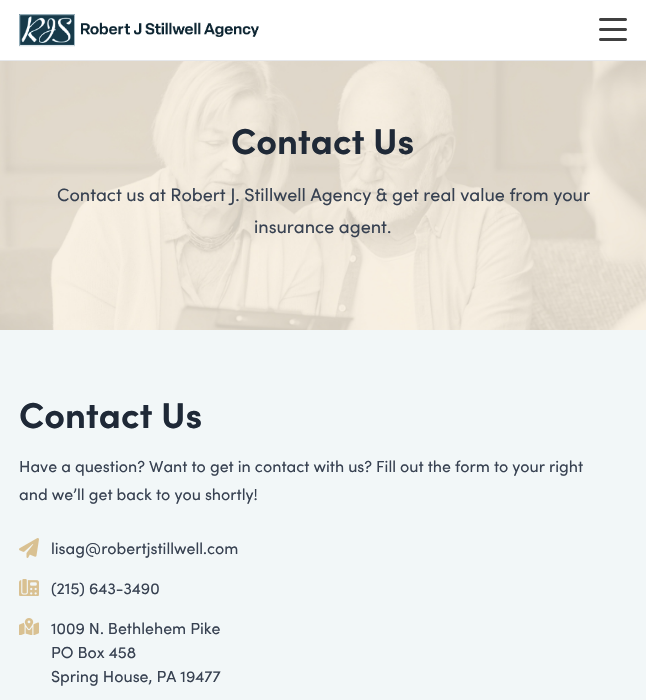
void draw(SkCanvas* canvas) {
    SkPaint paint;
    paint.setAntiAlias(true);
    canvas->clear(0xFFFFFFFF);
    paint.setColor(0xFFE5E7EB);
    canvas->drawRect(SkRect::MakeXYWH(0, 60, 646, 1), paint);
    canvas->drawImageRect(SkImages::DeferredFromEncodedData(SkData::MakeFromFileName("img1.png")), SkRect::MakeXYWH(19, 14, 240, 33), SkSamplingOptions());
    canvas->drawImageRect(SkImages::DeferredFromEncodedData(SkData::MakeFromFileName("img2.png")), SkRect::MakeXYWH(599, 18, 28, 23), SkSamplingOptions());
    canvas->drawImageRect(SkImages::DeferredFromEncodedData(SkData::MakeFromFileName("img3.png")), SkRect::MakeXYWH(0, 61, 646, 269), SkSamplingOptions());
    SkFont font1(fontMgr->matchFamilyStyle("Sofia", SkFontStyle::Bold()), 36);
    font1.setSubpixel(true);
    paint.setColor(0xFF1F2937);
    canvas->drawString("Contact Us", 231, 154, font1, paint);
    SkFont font2(fontMgr->matchFamilyStyle("Sofia", SkFontStyle::Normal()), 18);
    font2.setSubpixel(true);
    paint.setColor(0xFF374151);
    canvas->drawString("Contact us at Robert J. Stillwell Agency & get real value from your", 57, 201, font2, paint);
    canvas->drawString("insurance agent.", 254, 233, font2, paint);
    paint.setColor(0xFFF2F7F8);
    canvas->drawRect(SkRect::MakeXYWH(0, 330, 646, 370), paint);
    paint.setColor(0xFF1F2937);
    canvas->drawString("Contact Us", 19, 428, font1, paint);
    SkFont font3(fontMgr->matchFamilyStyle("Sofia", SkFontStyle::Normal()), 16);
    font3.setSubpixel(true);
    paint.setColor(0xFF374151);
    canvas->drawString("Have a question? Want to get in contact with us? Fill out the form to your right", 19, 472, font3, paint);
    canvas->drawString("and we’ll get back to you shortly!", 19, 500, font3, paint);
    canvas->drawImageRect(SkImages::DeferredFromEncodedData(SkData::MakeFromFileName("img4.png")), SkRect::MakeXYWH(19, 538, 20, 20), SkSamplingOptions());
    canvas->drawString("lisag@robertjstillwell.com", 51, 554, font3, paint);
    canvas->drawImageRect(SkImages::DeferredFromEncodedData(SkData::MakeFromFileName("img5.png")), SkRect::MakeXYWH(19, 579, 20, 17), SkSamplingOptions());
    canvas->drawString("(215) 643-3490", 51, 594, font3, paint);
    canvas->drawImageRect(SkImages::DeferredFromEncodedData(SkData::MakeFromFileName("img6.png")), SkRect::MakeXYWH(19, 618, 20, 17), SkSamplingOptions());
    canvas->drawString("1009 N. Bethlehem Pike", 51, 634, font3, paint);
    canvas->drawString("PO Box 458", 51, 658, font3, paint);
    canvas->drawString("Spring House, PA 19477", 51, 682, font3, paint);
}
